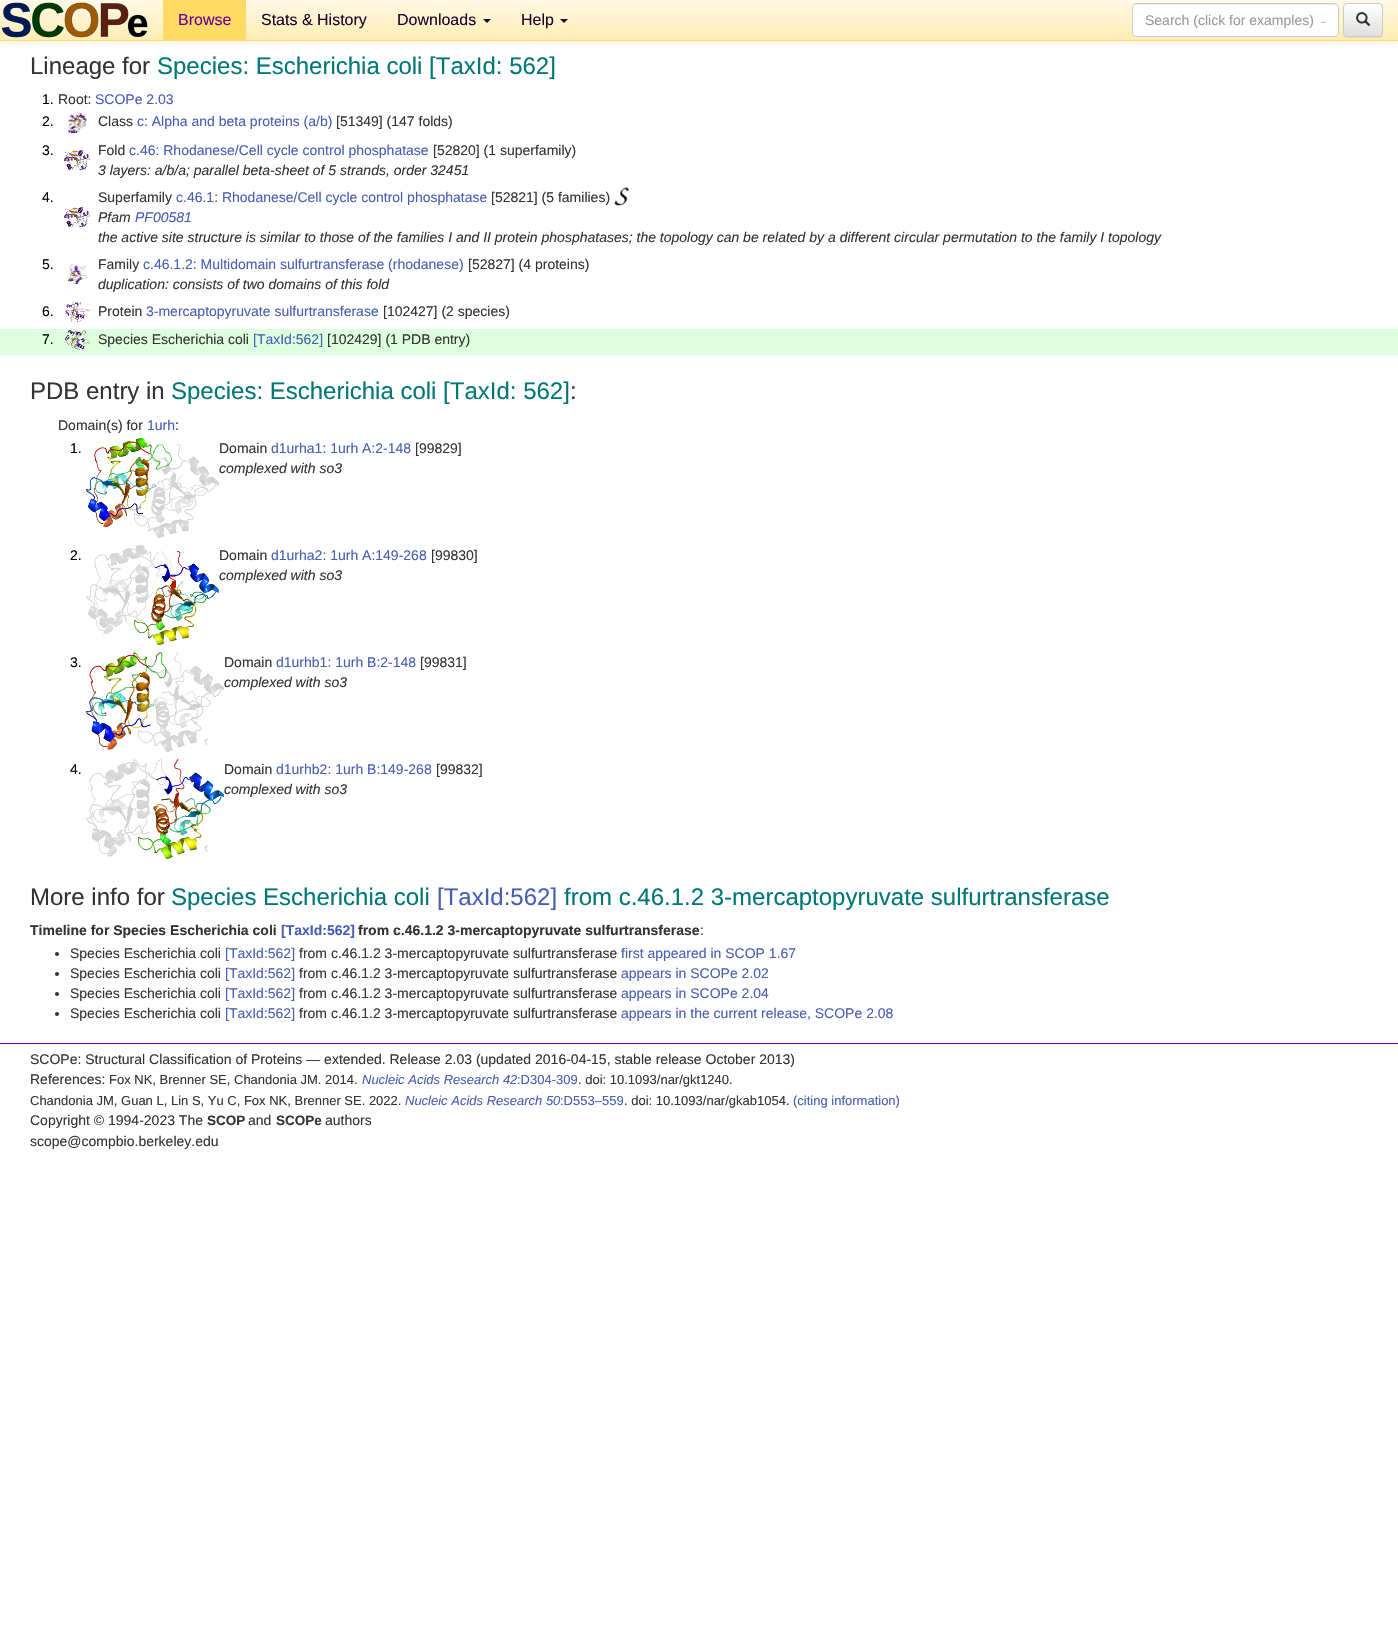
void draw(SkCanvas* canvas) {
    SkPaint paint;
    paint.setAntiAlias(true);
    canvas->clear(0xFFFFFFFF);
    paint.setColor(0x12000000);
    paint.setMaskFilter(SkMaskFilter::MakeBlur(kNormal_SkBlurStyle, 2.5f));
    canvas->drawRect(SkRect::MakeXYWH(0, 1, 1398, 41), paint);
    paint.setMaskFilter(nullptr);
    {
        const SkColor colors[] = {0xFFFFF9E6, 0xFFFFEDB3};
        const float stops[] = {0, 1};
        const SkPoint ends[] = {{699, 0}, {699, 40}};
        paint.setShader(SkGradientShader::MakeLinear(ends, colors, stops, 2, SkTileMode::kClamp));
        paint.setAlpha(255);
    }
    canvas->drawRect(SkRect::MakeXYWH(0, 1, 1398, 39), paint);
    paint.setShader(nullptr);
    paint.setColor(0xFFFFFAE9);
    canvas->drawRect(SkRect::MakeXYWH(0, 0, 1398, 1), paint);
    paint.setColor(0xFFFFDA65);
    canvas->drawRect(SkRect::MakeXYWH(0, 40, 1398, 1), paint);
    canvas->drawImageRect(SkImages::DeferredFromEncodedData(SkData::MakeFromFileName("img1.png")), SkRect::MakeXYWH(2, 2, 146, 36), SkSamplingOptions());
    canvas->drawRect(SkRect::MakeXYWH(163, 0, 83, 40), paint);
    SkFont font1(fontMgr->matchFamilyStyle("Liberation Sans", SkFontStyle::Normal()), 16);
    font1.setSubpixel(true);
    paint.setColor(0xFF660099);
    canvas->drawString("Browse", 178, 25, font1, paint);
    paint.setColor(0xFF1D002B);
    canvas->drawString("Stats & History", 261, 25, font1, paint);
    canvas->drawString("Downloads", 397, 25, font1, paint);
    canvas->drawPath(SkPathBuilder().moveTo(483, 19).lineTo(491, 19).lineTo(487, 23).close().detach(), paint);
    canvas->drawString("Help", 521, 25, font1, paint);
    canvas->drawPath(SkPathBuilder().moveTo(560, 19).lineTo(568, 19).lineTo(564, 23).close().detach(), paint);
    paint.setColor(0xFFFFFFFF);
    canvas->drawRoundRect(SkRect::MakeXYWH(1132, 3, 207, 34), 4, 4, paint);
    paint.setColor(0xFFECECEC);
    canvas->drawPath(SkPathBuilder().moveTo(1136, 5).lineTo(1335, 5).cubicTo(1337, 5, 1338, 6, 1338, 8).cubicTo(1338, 6, 1337, 4, 1335, 4).lineTo(1136, 4).cubicTo(1134, 4, 1133, 6, 1133, 8).cubicTo(1133, 6, 1134, 5, 1136, 5).close().detach(), paint);
    paint.setStyle(SkPaint::kStroke_Style);
    paint.setStrokeWidth(1);
    paint.setColor(0xFFCCCCCC);
    canvas->drawRoundRect(SkRect::MakeXYWH(1132.5f, 3.5f, 206, 33), 3.5f, 3.5f, paint);
    canvas->save();
    canvas->clipRect(SkRect::MakeXYWH(1145, 12, 181, 16));
    SkFont font2(fontMgr->matchFamilyStyle("Liberation Sans", SkFontStyle::Normal()), 14);
    font2.setSubpixel(true);
    paint.setStyle(SkPaint::kFill_Style);
    paint.setColor(0xFF999999);
    canvas->drawString("Search (click for examples) →", 1145, 25, font2, paint);
    canvas->restore();
    paint.setColor(0x12000000);
    paint.setMaskFilter(SkMaskFilter::MakeBlur(kNormal_SkBlurStyle, 0.5f));
    canvas->drawRoundRect(SkRect::MakeXYWH(1343, 4, 40, 34), 4, 4, paint);
    paint.setMaskFilter(nullptr);
    canvas->save();
    canvas->clipPath(SkPathBuilder().moveTo(1347, 3).lineTo(1379, 3).cubicTo(1381, 3, 1383, 5, 1383, 7).lineTo(1383, 33).cubicTo(1383, 35, 1381, 37, 1379, 37).lineTo(1347, 37).cubicTo(1345, 37, 1343, 35, 1343, 33).lineTo(1343, 7).cubicTo(1343, 5, 1345, 3, 1347, 3).close().detach(), true);
    {
        const SkColor colors[] = {0xFFFFFFFF, 0xFFE0E0E0};
        const float stops[] = {0, 1};
        const SkPoint ends[] = {{1363, 4}, {1363, 36}};
        paint.setShader(SkGradientShader::MakeLinear(ends, colors, stops, 2, SkTileMode::kClamp));
        paint.setAlpha(255);
    }
    canvas->drawRect(SkRect::MakeXYWH(1343, 4, 40, 32), paint);
    canvas->restore();
    paint.setStyle(SkPaint::kStroke_Style);
    paint.setShader(nullptr);
    paint.setColor(0xFFCCCCCC);
    canvas->drawRoundRect(SkRect::MakeXYWH(1343.5f, 3.5f, 39, 33), 3.5f, 3.5f, paint);
    canvas->drawImageRect(SkImages::DeferredFromEncodedData(SkData::MakeFromFileName("img2.png")), SkRect::MakeXYWH(1356, 12, 15, 14), SkSamplingOptions());
    SkFont font3(fontMgr->matchFamilyStyle("Liberation Sans", SkFontStyle::Normal()), 24);
    font3.setSubpixel(true);
    paint.setStyle(SkPaint::kFill_Style);
    paint.setColor(0xFF333333);
    canvas->drawString("Lineage for", 30, 74, font3, paint);
    paint.setColor(0xFF007777);
    canvas->drawString("Species: Escherichia coli [TaxId: 562]", 157, 74, font3, paint);
    paint.setColor(0xFF000000);
    canvas->drawString("1.", 42, 104, font2, paint);
    paint.setColor(0xFF333333);
    canvas->drawString("Root:", 58, 104, font2, paint);
    paint.setColor(0xFF465EB4);
    canvas->drawString("SCOPe 2.03", 95, 104, font2, paint);
    paint.setColor(0xFF000000);
    canvas->drawString("2.", 42, 126, font2, paint);
    canvas->drawImageRect(SkImages::DeferredFromEncodedData(SkData::MakeFromFileName("img3.png")), SkRect::MakeXYWH(68, 113, 19, 20), SkSamplingOptions());
    paint.setColor(0xFF333333);
    canvas->drawString("Class", 98, 126, font2, paint);
    paint.setColor(0xFF465EB4);
    canvas->drawString("c: Alpha and beta proteins (a/b)", 137, 126, font2, paint);
    paint.setColor(0xFF333333);
    canvas->drawString("[51349] (147 folds)", 336, 126, font2, paint);
    paint.setColor(0xFF000000);
    canvas->drawString("3.", 42, 155, font2, paint);
    canvas->drawImageRect(SkImages::DeferredFromEncodedData(SkData::MakeFromFileName("img4.png")), SkRect::MakeXYWH(64, 150, 26, 20), SkSamplingOptions());
    paint.setColor(0xFF333333);
    canvas->drawString("Fold", 98, 155, font2, paint);
    paint.setColor(0xFF465EB4);
    canvas->drawString("c.46: Rhodanese/Cell cycle control phosphatase", 129, 155, font2, paint);
    paint.setColor(0xFF333333);
    canvas->drawString("[52820] (1 superfamily)", 433, 155, font2, paint);
    SkFont font4(fontMgr->matchFamilyStyle("Liberation Sans", SkFontStyle::Italic()), 14);
    font4.setSubpixel(true);
    canvas->drawString("3 layers: a/b/a; parallel beta-sheet of 5 strands, order 32451", 98, 175, font4, paint);
    paint.setColor(0xFF000000);
    canvas->drawString("4.", 42, 202, font2, paint);
    canvas->drawImageRect(SkImages::DeferredFromEncodedData(SkData::MakeFromFileName("img4.png")), SkRect::MakeXYWH(64, 207, 26, 20), SkSamplingOptions());
    paint.setColor(0xFF333333);
    canvas->drawString("Superfamily", 98, 202, font2, paint);
    paint.setColor(0xFF465EB4);
    canvas->drawString("c.46.1: Rhodanese/Cell cycle control phosphatase", 176, 202, font2, paint);
    paint.setColor(0xFF333333);
    canvas->drawString("[52821] (5 families)", 491, 202, font2, paint);
    canvas->drawImageRect(SkImages::DeferredFromEncodedData(SkData::MakeFromFileName("img5.png")), SkRect::MakeXYWH(614, 187, 15, 19), SkSamplingOptions());
    canvas->drawString("Pfam", 98, 222, font4, paint);
    paint.setColor(0xFF465EB4);
    canvas->drawString("PF00581", 135, 222, font4, paint);
    paint.setColor(0xFF333333);
    canvas->drawString("the active site structure is similar to those of the families I and II protein phosphatases; the topology can be related by a different circular permutation to the family I topology", 98, 242, font4, paint);
    paint.setColor(0xFF000000);
    canvas->drawString("5.", 42, 269, font2, paint);
    canvas->drawImageRect(SkImages::DeferredFromEncodedData(SkData::MakeFromFileName("img6.png")), SkRect::MakeXYWH(68, 264, 19, 20), SkSamplingOptions());
    paint.setColor(0xFF333333);
    canvas->drawString("Family", 98, 269, font2, paint);
    paint.setColor(0xFF465EB4);
    canvas->drawString("c.46.1.2: Multidomain sulfurtransferase (rhodanese)", 143, 269, font2, paint);
    paint.setColor(0xFF333333);
    canvas->drawString("[52827] (4 proteins)", 468, 269, font2, paint);
    canvas->drawString("duplication: consists of two domains of this fold", 98, 289, font4, paint);
    paint.setColor(0xFF000000);
    canvas->drawString("6.", 42, 316, font2, paint);
    canvas->drawImageRect(SkImages::DeferredFromEncodedData(SkData::MakeFromFileName("img7.png")), SkRect::MakeXYWH(65, 302, 25, 20), SkSamplingOptions());
    paint.setColor(0xFF333333);
    canvas->drawString("Protein", 98, 316, font2, paint);
    paint.setColor(0xFF465EB4);
    canvas->drawString("3-mercaptopyruvate sulfurtransferase", 146, 316, font2, paint);
    paint.setColor(0xFF333333);
    canvas->drawString("[102427] (2 species)", 383, 316, font2, paint);
    paint.setColor(0xFFDDFFDD);
    canvas->drawRect(SkRect::MakeXYWH(0, 329, 1398, 26), paint);
    paint.setColor(0xFF000000);
    canvas->drawString("7.", 42, 344, font2, paint);
    canvas->drawImageRect(SkImages::DeferredFromEncodedData(SkData::MakeFromFileName("img8.png")), SkRect::MakeXYWH(65, 330, 25, 20), SkSamplingOptions());
    paint.setColor(0xFF333333);
    canvas->drawString("Species Escherichia coli", 98, 344, font2, paint);
    paint.setColor(0xFF465EB4);
    canvas->drawString("[TaxId:562]", 253, 344, font2, paint);
    paint.setColor(0xFF333333);
    canvas->drawString("[102429] (1 PDB entry)", 327, 344, font2, paint);
    canvas->drawString("PDB entry in", 30, 399, font3, paint);
    paint.setColor(0xFF007777);
    canvas->drawString("Species: Escherichia coli [TaxId: 562]", 171, 399, font3, paint);
    paint.setColor(0xFF333333);
    canvas->drawString(":", 570, 399, font3, paint);
    canvas->drawString("Domain(s) for", 58, 430, font2, paint);
    paint.setColor(0xFF465EB4);
    canvas->drawString("1urh", 147, 430, font2, paint);
    paint.setColor(0xFF333333);
    canvas->drawString(":", 175, 430, font2, paint);
    paint.setColor(0xFF000000);
    canvas->drawString("1.", 70, 453, font2, paint);
    canvas->drawImageRect(SkImages::DeferredFromEncodedData(SkData::MakeFromFileName("img9.png")), SkRect::MakeXYWH(86, 438, 133, 100), SkSamplingOptions());
    paint.setColor(0xFF333333);
    canvas->drawString("Domain", 219, 453, font2, paint);
    paint.setColor(0xFF465EB4);
    canvas->drawString("d1urha1: 1urh A:2-148", 271, 453, font2, paint);
    paint.setColor(0xFF333333);
    canvas->drawString("[99829]", 415, 453, font2, paint);
    canvas->drawString("complexed with so3", 219, 473, font4, paint);
    paint.setColor(0xFF000000);
    canvas->drawString("2.", 70, 560, font2, paint);
    canvas->drawImageRect(SkImages::DeferredFromEncodedData(SkData::MakeFromFileName("img10.png")), SkRect::MakeXYWH(86, 545, 133, 100), SkSamplingOptions());
    paint.setColor(0xFF333333);
    canvas->drawString("Domain", 219, 560, font2, paint);
    paint.setColor(0xFF465EB4);
    canvas->drawString("d1urha2: 1urh A:149-268", 271, 560, font2, paint);
    paint.setColor(0xFF333333);
    canvas->drawString("[99830]", 431, 560, font2, paint);
    canvas->drawString("complexed with so3", 219, 580, font4, paint);
    paint.setColor(0xFF000000);
    canvas->drawString("3.", 70, 667, font2, paint);
    canvas->drawImageRect(SkImages::DeferredFromEncodedData(SkData::MakeFromFileName("img11.png")), SkRect::MakeXYWH(86, 652, 138, 100), SkSamplingOptions());
    paint.setColor(0xFF333333);
    canvas->drawString("Domain", 224, 667, font2, paint);
    paint.setColor(0xFF465EB4);
    canvas->drawString("d1urhb1: 1urh B:2-148", 276, 667, font2, paint);
    paint.setColor(0xFF333333);
    canvas->drawString("[99831]", 420, 667, font2, paint);
    canvas->drawString("complexed with so3", 224, 687, font4, paint);
    paint.setColor(0xFF000000);
    canvas->drawString("4.", 70, 774, font2, paint);
    canvas->drawImageRect(SkImages::DeferredFromEncodedData(SkData::MakeFromFileName("img12.png")), SkRect::MakeXYWH(86, 759, 138, 100), SkSamplingOptions());
    paint.setColor(0xFF333333);
    canvas->drawString("Domain", 224, 774, font2, paint);
    paint.setColor(0xFF465EB4);
    canvas->drawString("d1urhb2: 1urh B:149-268", 276, 774, font2, paint);
    paint.setColor(0xFF333333);
    canvas->drawString("[99832]", 436, 774, font2, paint);
    canvas->drawString("complexed with so3", 224, 794, font4, paint);
    canvas->drawString("More info for", 30, 905, font3, paint);
    paint.setColor(0xFF007777);
    canvas->drawString("Species Escherichia coli", 171, 905, font3, paint);
    paint.setColor(0xFF465EB4);
    canvas->drawString("[TaxId:562]", 437, 905, font3, paint);
    paint.setColor(0xFF007777);
    canvas->drawString("from c.46.1.2 3-mercaptopyruvate sulfurtransferase", 564, 905, font3, paint);
    SkFont font5(fontMgr->matchFamilyStyle("Liberation Sans", SkFontStyle::Bold()), 14);
    font5.setSubpixel(true);
    paint.setColor(0xFF333333);
    canvas->drawString("Timeline for Species Escherichia coli", 30, 935, font5, paint);
    paint.setColor(0xFF465EB4);
    canvas->drawString("[TaxId:562]", 281, 935, font5, paint);
    paint.setColor(0xFF333333);
    canvas->drawString("from c.46.1.2 3-mercaptopyruvate sulfurtransferase", 358, 935, font5, paint);
    canvas->drawString(":", 700, 935, font2, paint);
    canvas->drawCircle(57, 954, 2, paint);
    canvas->drawString("Species Escherichia coli", 70, 958, font2, paint);
    paint.setColor(0xFF465EB4);
    canvas->drawString("[TaxId:562]", 225, 958, font2, paint);
    paint.setColor(0xFF333333);
    canvas->drawString("from c.46.1.2 3-mercaptopyruvate sulfurtransferase", 299, 958, font2, paint);
    paint.setColor(0xFF465EB4);
    canvas->drawString("first appeared in SCOP 1.67", 621, 958, font2, paint);
    paint.setColor(0xFF333333);
    canvas->drawCircle(57, 974, 2, paint);
    canvas->drawString("Species Escherichia coli", 70, 978, font2, paint);
    paint.setColor(0xFF465EB4);
    canvas->drawString("[TaxId:562]", 225, 978, font2, paint);
    paint.setColor(0xFF333333);
    canvas->drawString("from c.46.1.2 3-mercaptopyruvate sulfurtransferase", 299, 978, font2, paint);
    paint.setColor(0xFF465EB4);
    canvas->drawString("appears in SCOPe 2.02", 621, 978, font2, paint);
    paint.setColor(0xFF333333);
    canvas->drawCircle(57, 994, 2, paint);
    canvas->drawString("Species Escherichia coli", 70, 998, font2, paint);
    paint.setColor(0xFF465EB4);
    canvas->drawString("[TaxId:562]", 225, 998, font2, paint);
    paint.setColor(0xFF333333);
    canvas->drawString("from c.46.1.2 3-mercaptopyruvate sulfurtransferase", 299, 998, font2, paint);
    paint.setColor(0xFF465EB4);
    canvas->drawString("appears in SCOPe 2.04", 621, 998, font2, paint);
    paint.setColor(0xFF333333);
    canvas->drawCircle(57, 1014, 2, paint);
    canvas->drawString("Species Escherichia coli", 70, 1018, font2, paint);
    paint.setColor(0xFF465EB4);
    canvas->drawString("[TaxId:562]", 225, 1018, font2, paint);
    paint.setColor(0xFF333333);
    canvas->drawString("from c.46.1.2 3-mercaptopyruvate sulfurtransferase", 299, 1018, font2, paint);
    paint.setColor(0xFF465EB4);
    canvas->drawString("appears in the current release, SCOPe 2.08", 621, 1018, font2, paint);
    paint.setColor(0xFF660099);
    canvas->drawRect(SkRect::MakeXYWH(0, 1043, 1398, 1), paint);
    paint.setColor(0xFF333333);
    canvas->drawString("SCOPe: Structural Classification of Proteins — extended. Release 2.03 (updated 2016-04-15, stable release October 2013)", 30, 1064, font2, paint);
    canvas->drawString("References:", 30, 1084, font2, paint);
    SkFont font6(fontMgr->matchFamilyStyle("Liberation Sans", SkFontStyle::Normal()), 13);
    font6.setSubpixel(true);
    canvas->drawString("Fox NK, Brenner SE, Chandonia JM. 2014.", 109, 1084, font6, paint);
    SkFont font7(fontMgr->matchFamilyStyle("Liberation Sans", SkFontStyle::Italic()), 13);
    font7.setSubpixel(true);
    paint.setColor(0xFF465EB4);
    canvas->drawString("Nucleic Acids Research 42", 362, 1084, font7, paint);
    canvas->drawString(":D304-309", 517, 1084, font6, paint);
    paint.setColor(0xFF333333);
    canvas->drawString(". doi: 10.1093/nar/gkt1240.", 578, 1084, font6, paint);
    canvas->drawString("Chandonia JM, Guan L, Lin S, Yu C, Fox NK, Brenner SE. 2022.", 30, 1105, font6, paint);
    paint.setColor(0xFF465EB4);
    canvas->drawString("Nucleic Acids Research 50", 405, 1105, font7, paint);
    canvas->drawString(":D553–559", 560, 1105, font6, paint);
    paint.setColor(0xFF333333);
    canvas->drawString(". doi: 10.1093/nar/gkab1054.", 624, 1105, font6, paint);
    paint.setColor(0xFF465EB4);
    canvas->drawString("(citing information)", 793, 1105, font6, paint);
    paint.setColor(0xFF333333);
    canvas->drawString("Copyright © 1994-2023 The", 30, 1125, font2, paint);
    SkFont font8(fontMgr->matchFamilyStyle("Liberation Sans", SkFontStyle::Bold()), 13.5f);
    font8.setSubpixel(true);
    canvas->drawString("SCOP", 207, 1125, font8, paint);
    canvas->drawString("and", 248, 1125, font2, paint);
    canvas->drawString("SCOPe", 276, 1125, font8, paint);
    canvas->drawString("authors", 325, 1125, font2, paint);
    canvas->drawString("scope@compbio.berkeley.edu", 30, 1146, font2, paint);
}
